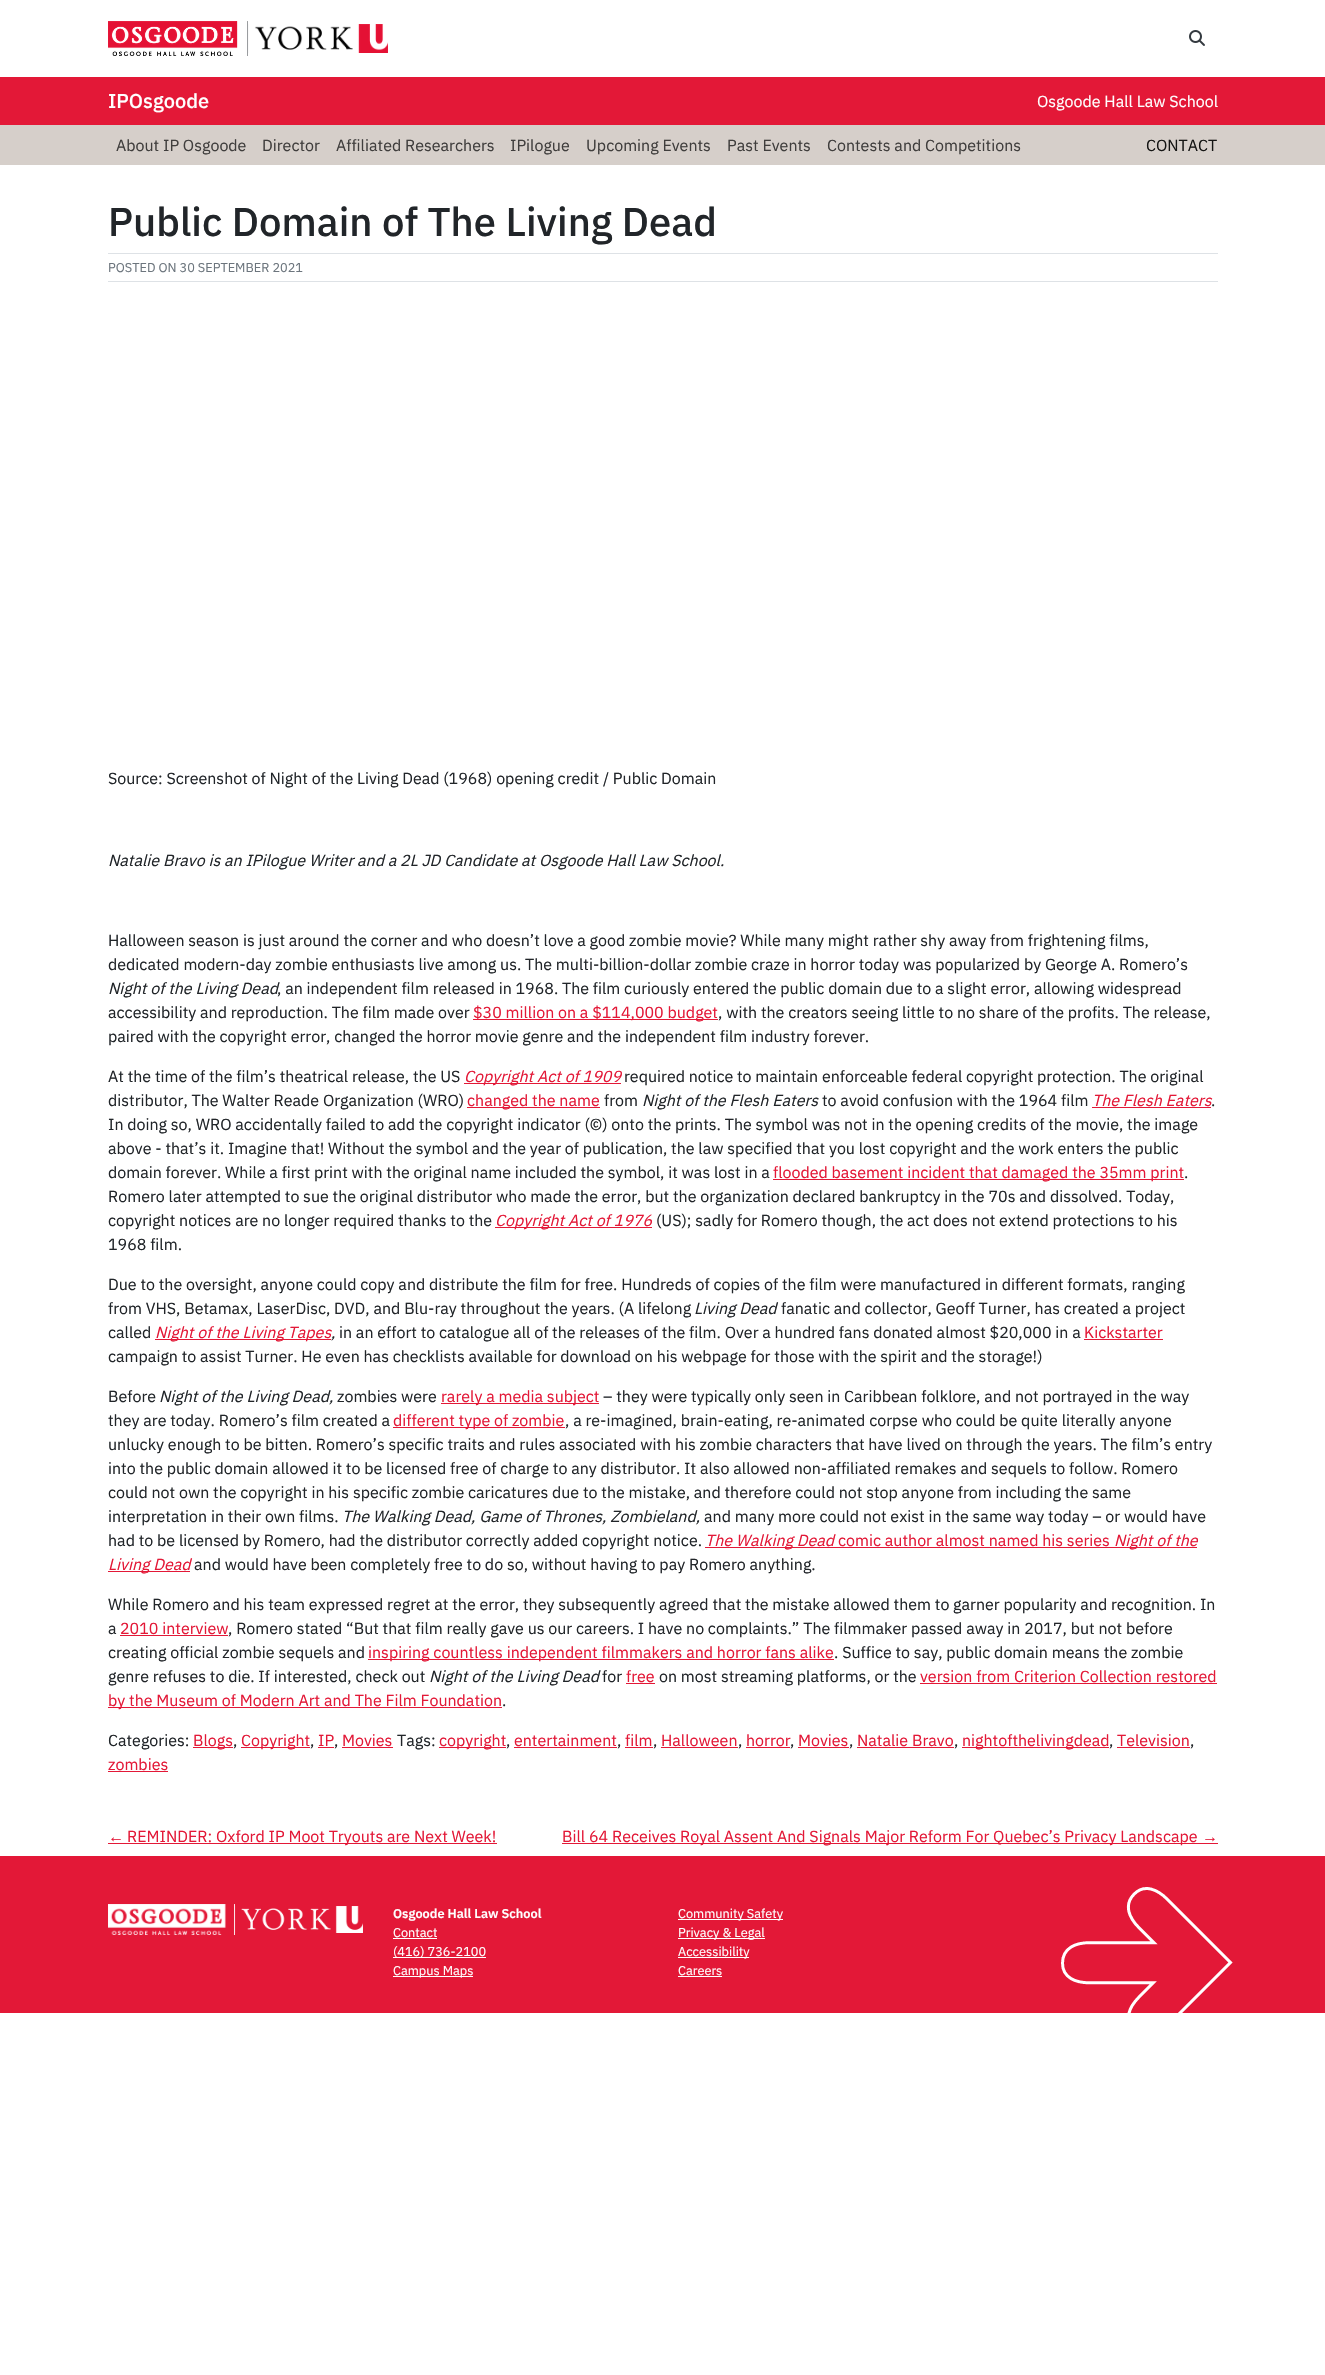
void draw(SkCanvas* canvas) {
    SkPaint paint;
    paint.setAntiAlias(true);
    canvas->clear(0xFFFFFFFF);
    canvas->drawImageRect(SkImages::DeferredFromEncodedData(SkData::MakeFromFileName("img1.png")), SkRect::MakeXYWH(108, 21, 140, 35), SkSamplingOptions());
    canvas->drawImageRect(SkImages::DeferredFromEncodedData(SkData::MakeFromFileName("img2.png")), SkRect::MakeXYWH(248, 24, 140, 29), SkSamplingOptions());
    canvas->drawImageRect(SkImages::DeferredFromEncodedData(SkData::MakeFromFileName("img3.png")), SkRect::MakeXYWH(1189, 30, 16, 16), SkSamplingOptions());
    paint.setColor(0xFFE31837);
    canvas->drawRect(SkRect::MakeXYWH(0, 77, 1325, 48), paint);
    SkFont font1(fontMgr->matchFamilyStyle("IBM Plex Sans", SkFontStyle(500, SkFontStyle::kNormal_Width, SkFontStyle::kUpright_Slant)), 20);
    font1.setSubpixel(true);
    paint.setColor(0xFFFFFFFF);
    canvas->drawString("IPOsgoode", 108, 108, font1, paint);
    SkFont font2(fontMgr->matchFamilyStyle("IBM Plex Sans", SkFontStyle::Normal()), 16);
    font2.setSubpixel(true);
    canvas->drawString("Osgoode Hall Law School", 1037, 107, font2, paint);
    paint.setColor(0xFFD6CFCA);
    canvas->drawRect(SkRect::MakeXYWH(0, 125, 1325, 40), paint);
    paint.setColor(0xFF403E3D);
    canvas->drawString("About IP Osgoode", 116, 151, font2, paint);
    canvas->drawString("Director", 262, 151, font2, paint);
    canvas->drawString("Affiliated Researchers", 336, 151, font2, paint);
    canvas->drawString("IPilogue", 510, 151, font2, paint);
    canvas->drawString("Upcoming Events", 586, 151, font2, paint);
    canvas->drawString("Past Events", 727, 151, font2, paint);
    canvas->drawString("Contests and Competitions", 827, 151, font2, paint);
    paint.setColor(0xFF151514);
    canvas->drawString("CONTACT", 1146, 151, font2, paint);
    SkFont font3(fontMgr->matchFamilyStyle("IBM Plex Sans", SkFontStyle(500, SkFontStyle::kNormal_Width, SkFontStyle::kUpright_Slant)), 40);
    font3.setSubpixel(true);
    paint.setColor(0xFF212529);
    canvas->drawString("Public Domain of The Living Dead", 108, 236, font3, paint);
    paint.setColor(0xFFDEE2E6);
    canvas->drawRect(SkRect::MakeXYWH(108, 253, 1110, 1), paint);
    canvas->drawRect(SkRect::MakeXYWH(108, 281, 1110, 1), paint);
    SkFont font4(fontMgr->matchFamilyStyle("IBM Plex Sans", SkFontStyle::Normal()), 12.75f);
    font4.setSubpixel(true);
    paint.setColor(0xFF6C757D);
    canvas->drawString("POSTED ON 30 SEPTEMBER 2021", 108, 272, font4, paint);
    paint.setColor(0xFF212529);
    canvas->drawString("Source: Screenshot of Night of the Living Dead (1968) opening credit / Public Domain", 108, 784, font2, paint);
    SkFont font5(fontMgr->matchFamilyStyle("IBM Plex Sans", SkFontStyle::Italic()), 16);
    font5.setSubpixel(true);
    canvas->drawString("Natalie Bravo is an IPilogue Writer and a 2L JD Candidate at Osgoode Hall Law School.", 108, 866, font5, paint);
    canvas->drawString("Halloween season is just around the corner and who doesn’t love a good zombie movie? While many might rather shy away from frightening films,", 108, 946, font2, paint);
    canvas->drawString("dedicated modern-day zombie enthusiasts live among us. The multi-billion-dollar zombie craze in horror today was popularized by George A. Romero’s", 108, 970, font2, paint);
    canvas->drawString("Night of the Living Dead", 108, 994, font5, paint);
    canvas->drawString(", an independent film released in 1968. The film curiously entered the public domain due to a slight error, allowing widespread", 277, 994, font2, paint);
    canvas->drawString("accessibility and reproduction. The film made over", 108, 1018, font2, paint);
    paint.setColor(0xFFE31837);
    canvas->drawRect(SkRect::MakeXYWH(473, 1019, 245, 1), paint);
    canvas->drawString("$30 million on a $114,000 budget", 473, 1018, font2, paint);
    paint.setColor(0xFF212529);
    canvas->drawString(", with the creators seeing little to no share of the profits. The release,", 718, 1018, font2, paint);
    canvas->drawString("paired with the copyright error, changed the horror movie genre and the independent film industry forever.", 108, 1042, font2, paint);
    canvas->drawString("At the time of the film’s theatrical release, the US", 108, 1082, font2, paint);
    paint.setColor(0xFFE31837);
    canvas->drawRect(SkRect::MakeXYWH(464, 1083, 157, 1), paint);
    canvas->drawString("Copyright Act of 1909", 464, 1082, font5, paint);
    paint.setColor(0xFF212529);
    canvas->drawString("required notice to maintain enforceable federal copyright protection. The original", 624, 1082, font2, paint);
    canvas->drawString("distributor, The Walter Reade Organization (WRO)", 108, 1106, font2, paint);
    paint.setColor(0xFFE31837);
    canvas->drawRect(SkRect::MakeXYWH(467, 1107, 133, 1), paint);
    canvas->drawString("changed the name", 467, 1106, font2, paint);
    paint.setColor(0xFF212529);
    canvas->drawString("from", 604, 1106, font2, paint);
    canvas->drawString("Night of the Flesh Eaters", 642, 1106, font5, paint);
    canvas->drawString("to avoid confusion with the 1964 film", 822, 1106, font2, paint);
    paint.setColor(0xFFE31837);
    canvas->drawString("The Flesh Eaters", 1092, 1106, font5, paint);
    canvas->drawRect(SkRect::MakeXYWH(1092, 1107, 119, 1), paint);
    paint.setColor(0xFF212529);
    canvas->drawString(".", 1211, 1106, font2, paint);
    canvas->drawString("In doing so, WRO accidentally failed to add the copyright indicator (©) onto the prints. The symbol was not in the opening credits of the movie, the image", 108, 1130, font2, paint);
    canvas->drawString("above - that’s it. Imagine that! Without the symbol and the year of publication, the law specified that you lost copyright and the work enters the public", 108, 1154, font2, paint);
    canvas->drawString("domain forever. While a first print with the original name included the symbol, it was lost in a", 108, 1178, font2, paint);
    paint.setColor(0xFFE31837);
    canvas->drawRect(SkRect::MakeXYWH(773, 1179, 411, 1), paint);
    canvas->drawString("flooded basement incident that damaged the 35mm print", 773, 1178, font2, paint);
    paint.setColor(0xFF212529);
    canvas->drawString(".", 1184, 1178, font2, paint);
    canvas->drawString("Romero later attempted to sue the original distributor who made the error, but the organization declared bankruptcy in the 70s and dissolved. Today,", 108, 1202, font2, paint);
    canvas->drawString("copyright notices are no longer required thanks to the", 108, 1226, font2, paint);
    paint.setColor(0xFFE31837);
    canvas->drawRect(SkRect::MakeXYWH(495, 1227, 157, 1), paint);
    canvas->drawString("Copyright Act of 1976", 495, 1226, font5, paint);
    paint.setColor(0xFF212529);
    canvas->drawString("(US); sadly for Romero though, the act does not extend protections to his", 656, 1226, font2, paint);
    canvas->drawString("1968 film.", 108, 1250, font2, paint);
    canvas->drawString("Due to the oversight, anyone could copy and distribute the film for free. Hundreds of copies of the film were manufactured in different formats, ranging", 108, 1290, font2, paint);
    canvas->drawString("from VHS, Betamax, LaserDisc, DVD, and Blu-ray throughout the years. (A lifelong", 108, 1314, font2, paint);
    canvas->drawString("Living Dead", 694, 1314, font5, paint);
    canvas->drawString("fanatic and collector, Geoff Turner, has created a project", 781, 1314, font2, paint);
    canvas->drawString("called", 108, 1338, font2, paint);
    paint.setColor(0xFFE31837);
    canvas->drawRect(SkRect::MakeXYWH(155, 1339, 176, 1), paint);
    canvas->drawString("Night of the Living Tapes", 155, 1338, font5, paint);
    paint.setColor(0xFF212529);
    canvas->drawString(",", 331, 1338, font5, paint);
    canvas->drawString("in an effort to catalogue all of the releases of the film. Over a hundred fans donated almost $20,000 in a", 339, 1338, font2, paint);
    paint.setColor(0xFFE31837);
    canvas->drawString("Kickstarter", 1084, 1338, font2, paint);
    canvas->drawRect(SkRect::MakeXYWH(1084, 1339, 79, 1), paint);
    paint.setColor(0xFF212529);
    canvas->drawString("campaign to assist Turner. He even has checklists available for download on his webpage for those with the spirit and the storage!)", 108, 1362, font2, paint);
    canvas->drawString("Before", 108, 1402, font2, paint);
    canvas->drawString("Night of the Living Dead,", 159, 1402, font5, paint);
    canvas->drawString("zombies were", 337, 1402, font2, paint);
    paint.setColor(0xFFE31837);
    canvas->drawRect(SkRect::MakeXYWH(441, 1403, 158, 1), paint);
    canvas->drawString("rarely a media subject", 441, 1402, font2, paint);
    paint.setColor(0xFF212529);
    canvas->drawString("– they were typically only seen in Caribbean folklore, and not portrayed in the way", 603, 1402, font2, paint);
    canvas->drawString("they are today. Romero’s film created a", 108, 1426, font2, paint);
    paint.setColor(0xFFE31837);
    canvas->drawRect(SkRect::MakeXYWH(393, 1427, 172, 1), paint);
    canvas->drawString("different type of zombie", 393, 1426, font2, paint);
    paint.setColor(0xFF212529);
    canvas->drawString(", a re-imagined, brain-eating, re-animated corpse who could be quite literally anyone", 565, 1426, font2, paint);
    canvas->drawString("unlucky enough to be bitten. Romero’s specific traits and rules associated with his zombie characters that have lived on through the years. The film’s entry", 108, 1450, font2, paint);
    canvas->drawString("into the public domain allowed it to be licensed free of charge to any distributor. It also allowed non-affiliated remakes and sequels to follow. Romero", 108, 1474, font2, paint);
    canvas->drawString("could not own the copyright in his specific zombie caricatures due to the mistake, and therefore could not stop anyone from including the same", 108, 1498, font2, paint);
    canvas->drawString("interpretation in their own films.", 108, 1522, font2, paint);
    canvas->drawString("The Walking Dead, Game of Thrones, Zombieland,", 342, 1522, font5, paint);
    canvas->drawString("and many more could not exist in the same way today – or would have", 704, 1522, font2, paint);
    canvas->drawString("had to be licensed by Romero, had the distributor correctly added copyright notice.", 108, 1546, font2, paint);
    paint.setColor(0xFFE31837);
    canvas->drawRect(SkRect::MakeXYWH(705, 1547, 129, 1), paint);
    canvas->drawString("The Walking Dead", 705, 1546, font5, paint);
    canvas->drawRect(SkRect::MakeXYWH(834, 1547, 363, 1), paint);
    canvas->drawString("comic author almost named his series", 838, 1546, font2, paint);
    canvas->drawString("Night of the", 1114, 1546, font5, paint);
    canvas->drawRect(SkRect::MakeXYWH(108, 1571, 82, 1), paint);
    canvas->drawString("Living Dead", 108, 1570, font5, paint);
    paint.setColor(0xFF212529);
    canvas->drawString("and would have been completely free to do so, without having to pay Romero anything.", 194, 1570, font2, paint);
    canvas->drawString("While Romero and his team expressed regret at the error, they subsequently agreed that the mistake allowed them to garner popularity and recognition. In", 108, 1610, font2, paint);
    canvas->drawString("a", 108, 1634, font2, paint);
    paint.setColor(0xFFE31837);
    canvas->drawString("2010 interview", 120, 1634, font2, paint);
    canvas->drawRect(SkRect::MakeXYWH(120, 1635, 108, 1), paint);
    paint.setColor(0xFF212529);
    canvas->drawString(", Romero stated “But that film really gave us our careers. I have no complaints.” The filmmaker passed away in 2017, but not before", 228, 1634, font2, paint);
    canvas->drawString("creating official zombie sequels and", 108, 1658, font2, paint);
    paint.setColor(0xFFE31837);
    canvas->drawRect(SkRect::MakeXYWH(368, 1659, 466, 1), paint);
    canvas->drawString("inspiring countless independent filmmakers and horror fans alike", 368, 1658, font2, paint);
    paint.setColor(0xFF212529);
    canvas->drawString(". Suffice to say, public domain means the zombie", 834, 1658, font2, paint);
    canvas->drawString("genre refuses to die. If interested, check out", 108, 1682, font2, paint);
    canvas->drawString("Night of the Living Dead", 429, 1682, font5, paint);
    canvas->drawString("for", 602, 1682, font2, paint);
    paint.setColor(0xFFE31837);
    canvas->drawString("free", 626, 1682, font2, paint);
    canvas->drawRect(SkRect::MakeXYWH(626, 1683, 29, 1), paint);
    paint.setColor(0xFF212529);
    canvas->drawString("on most streaming platforms, or the", 659, 1682, font2, paint);
    paint.setColor(0xFFE31837);
    canvas->drawString("version from Criterion Collection restored", 920, 1682, font2, paint);
    canvas->drawRect(SkRect::MakeXYWH(920, 1683, 297, 1), paint);
    canvas->drawRect(SkRect::MakeXYWH(108, 1707, 394, 1), paint);
    canvas->drawString("by the Museum of Modern Art and The Film Foundation", 108, 1706, font2, paint);
    paint.setColor(0xFF212529);
    canvas->drawString(".", 502, 1706, font2, paint);
    canvas->drawString("Categories:", 108, 1746, font2, paint);
    paint.setColor(0xFFE31837);
    canvas->drawRect(SkRect::MakeXYWH(193, 1747, 40, 1), paint);
    canvas->drawString("Blogs", 193, 1746, font2, paint);
    paint.setColor(0xFF212529);
    canvas->drawString(",", 233, 1746, font2, paint);
    paint.setColor(0xFFE31837);
    canvas->drawRect(SkRect::MakeXYWH(241, 1747, 69, 1), paint);
    canvas->drawString("Copyright", 241, 1746, font2, paint);
    paint.setColor(0xFF212529);
    canvas->drawString(",", 310, 1746, font2, paint);
    paint.setColor(0xFFE31837);
    canvas->drawString("IP", 318, 1746, font2, paint);
    paint.setColor(0xFF212529);
    canvas->drawString(",", 334, 1746, font2, paint);
    paint.setColor(0xFFE31837);
    canvas->drawRect(SkRect::MakeXYWH(318, 1747, 16, 1), paint);
    canvas->drawRect(SkRect::MakeXYWH(342, 1747, 51, 1), paint);
    canvas->drawString("Movies", 342, 1746, font2, paint);
    paint.setColor(0xFF212529);
    canvas->drawString("Tags:", 397, 1746, font2, paint);
    paint.setColor(0xFFE31837);
    canvas->drawRect(SkRect::MakeXYWH(439, 1747, 67, 1), paint);
    canvas->drawString("copyright", 439, 1746, font2, paint);
    paint.setColor(0xFF212529);
    canvas->drawString(",", 506, 1746, font2, paint);
    paint.setColor(0xFFE31837);
    canvas->drawString("entertainment", 514, 1746, font2, paint);
    paint.setColor(0xFF212529);
    canvas->drawString(",", 617, 1746, font2, paint);
    paint.setColor(0xFFE31837);
    canvas->drawRect(SkRect::MakeXYWH(514, 1747, 103, 1), paint);
    canvas->drawString("film", 625, 1746, font2, paint);
    paint.setColor(0xFF212529);
    canvas->drawString(",", 653, 1746, font2, paint);
    paint.setColor(0xFFE31837);
    canvas->drawRect(SkRect::MakeXYWH(625, 1747, 28, 1), paint);
    canvas->drawString("Halloween", 661, 1746, font2, paint);
    paint.setColor(0xFF212529);
    canvas->drawString(",", 738, 1746, font2, paint);
    paint.setColor(0xFFE31837);
    canvas->drawRect(SkRect::MakeXYWH(661, 1747, 77, 1), paint);
    canvas->drawString("horror", 746, 1746, font2, paint);
    paint.setColor(0xFF212529);
    canvas->drawString(",", 790, 1746, font2, paint);
    paint.setColor(0xFFE31837);
    canvas->drawRect(SkRect::MakeXYWH(746, 1747, 44, 1), paint);
    canvas->drawString("Movies", 798, 1746, font2, paint);
    paint.setColor(0xFF212529);
    canvas->drawString(",", 849, 1746, font2, paint);
    paint.setColor(0xFFE31837);
    canvas->drawRect(SkRect::MakeXYWH(798, 1747, 51, 1), paint);
    canvas->drawString("Natalie Bravo", 857, 1746, font2, paint);
    paint.setColor(0xFF212529);
    canvas->drawString(",", 954, 1746, font2, paint);
    paint.setColor(0xFFE31837);
    canvas->drawRect(SkRect::MakeXYWH(857, 1747, 97, 1), paint);
    canvas->drawRect(SkRect::MakeXYWH(962, 1747, 147, 1), paint);
    canvas->drawString("nightofthelivingdead", 962, 1746, font2, paint);
    paint.setColor(0xFF212529);
    canvas->drawString(",", 1109, 1746, font2, paint);
    paint.setColor(0xFFE31837);
    canvas->drawString("Television", 1117, 1746, font2, paint);
    paint.setColor(0xFF212529);
    canvas->drawString(",", 1190, 1746, font2, paint);
    paint.setColor(0xFFE31837);
    canvas->drawRect(SkRect::MakeXYWH(1117, 1747, 73, 1), paint);
    canvas->drawString("zombies", 108, 1770, font2, paint);
    canvas->drawRect(SkRect::MakeXYWH(108, 1771, 60, 1), paint);
    SkFont font6(fontMgr->matchFamilyStyle("Liberation Sans", SkFontStyle::Normal()), 16);
    font6.setSubpixel(true);
    canvas->drawString("←", 108, 1842, font6, paint);
    canvas->drawRect(SkRect::MakeXYWH(108, 1843, 389, 1), paint);
    canvas->drawString("REMINDER: Oxford IP Moot Tryouts are Next Week!", 127, 1842, font2, paint);
    canvas->drawRect(SkRect::MakeXYWH(562, 1843, 656, 1), paint);
    canvas->drawString("Bill 64 Receives Royal Assent And Signals Major Reform For Quebec’s Privacy Landscape", 562, 1842, font2, paint);
    canvas->drawString("→", 1202, 1842, font6, paint);
    canvas->drawRect(SkRect::MakeXYWH(0, 1856, 1325, 157), paint);
    canvas->drawImageRect(SkImages::DeferredFromEncodedData(SkData::MakeFromFileName("img4.png")), SkRect::MakeXYWH(1061, 1887, 172, 126), SkSamplingOptions());
    canvas->drawImageRect(SkImages::DeferredFromEncodedData(SkData::MakeFromFileName("img5.png")), SkRect::MakeXYWH(108, 1904, 127, 31), SkSamplingOptions());
    canvas->drawImageRect(SkImages::DeferredFromEncodedData(SkData::MakeFromFileName("img6.png")), SkRect::MakeXYWH(235, 1906, 128, 27), SkSamplingOptions());
    SkFont font7(fontMgr->matchFamilyStyle("IBM Plex Sans", SkFontStyle(600, SkFontStyle::kNormal_Width, SkFontStyle::kUpright_Slant)), 12.75f);
    font7.setSubpixel(true);
    paint.setColor(0xFFFFFFFF);
    canvas->drawString("Osgoode Hall Law School", 393, 1918, font7, paint);
    canvas->drawString("Contact", 393, 1937, font4, paint);
    canvas->drawRect(SkRect::MakeXYWH(393, 1938, 44, 1), paint);
    canvas->drawRect(SkRect::MakeXYWH(393, 1957, 93, 1), paint);
    canvas->drawString("(416) 736-2100", 393, 1956, font4, paint);
    canvas->drawRect(SkRect::MakeXYWH(393, 1976, 80, 1), paint);
    canvas->drawString("Campus Maps", 393, 1975, font4, paint);
    canvas->drawRect(SkRect::MakeXYWH(678, 1919, 105, 1), paint);
    canvas->drawString("Community Safety", 678, 1918, font4, paint);
    canvas->drawRect(SkRect::MakeXYWH(678, 1938, 87, 1), paint);
    canvas->drawString("Privacy & Legal", 678, 1937, font4, paint);
    canvas->drawRect(SkRect::MakeXYWH(678, 1957, 71, 1), paint);
    canvas->drawString("Accessibility", 678, 1956, font4, paint);
    canvas->drawString("Careers", 678, 1975, font4, paint);
    canvas->drawRect(SkRect::MakeXYWH(678, 1976, 44, 1), paint);
}
